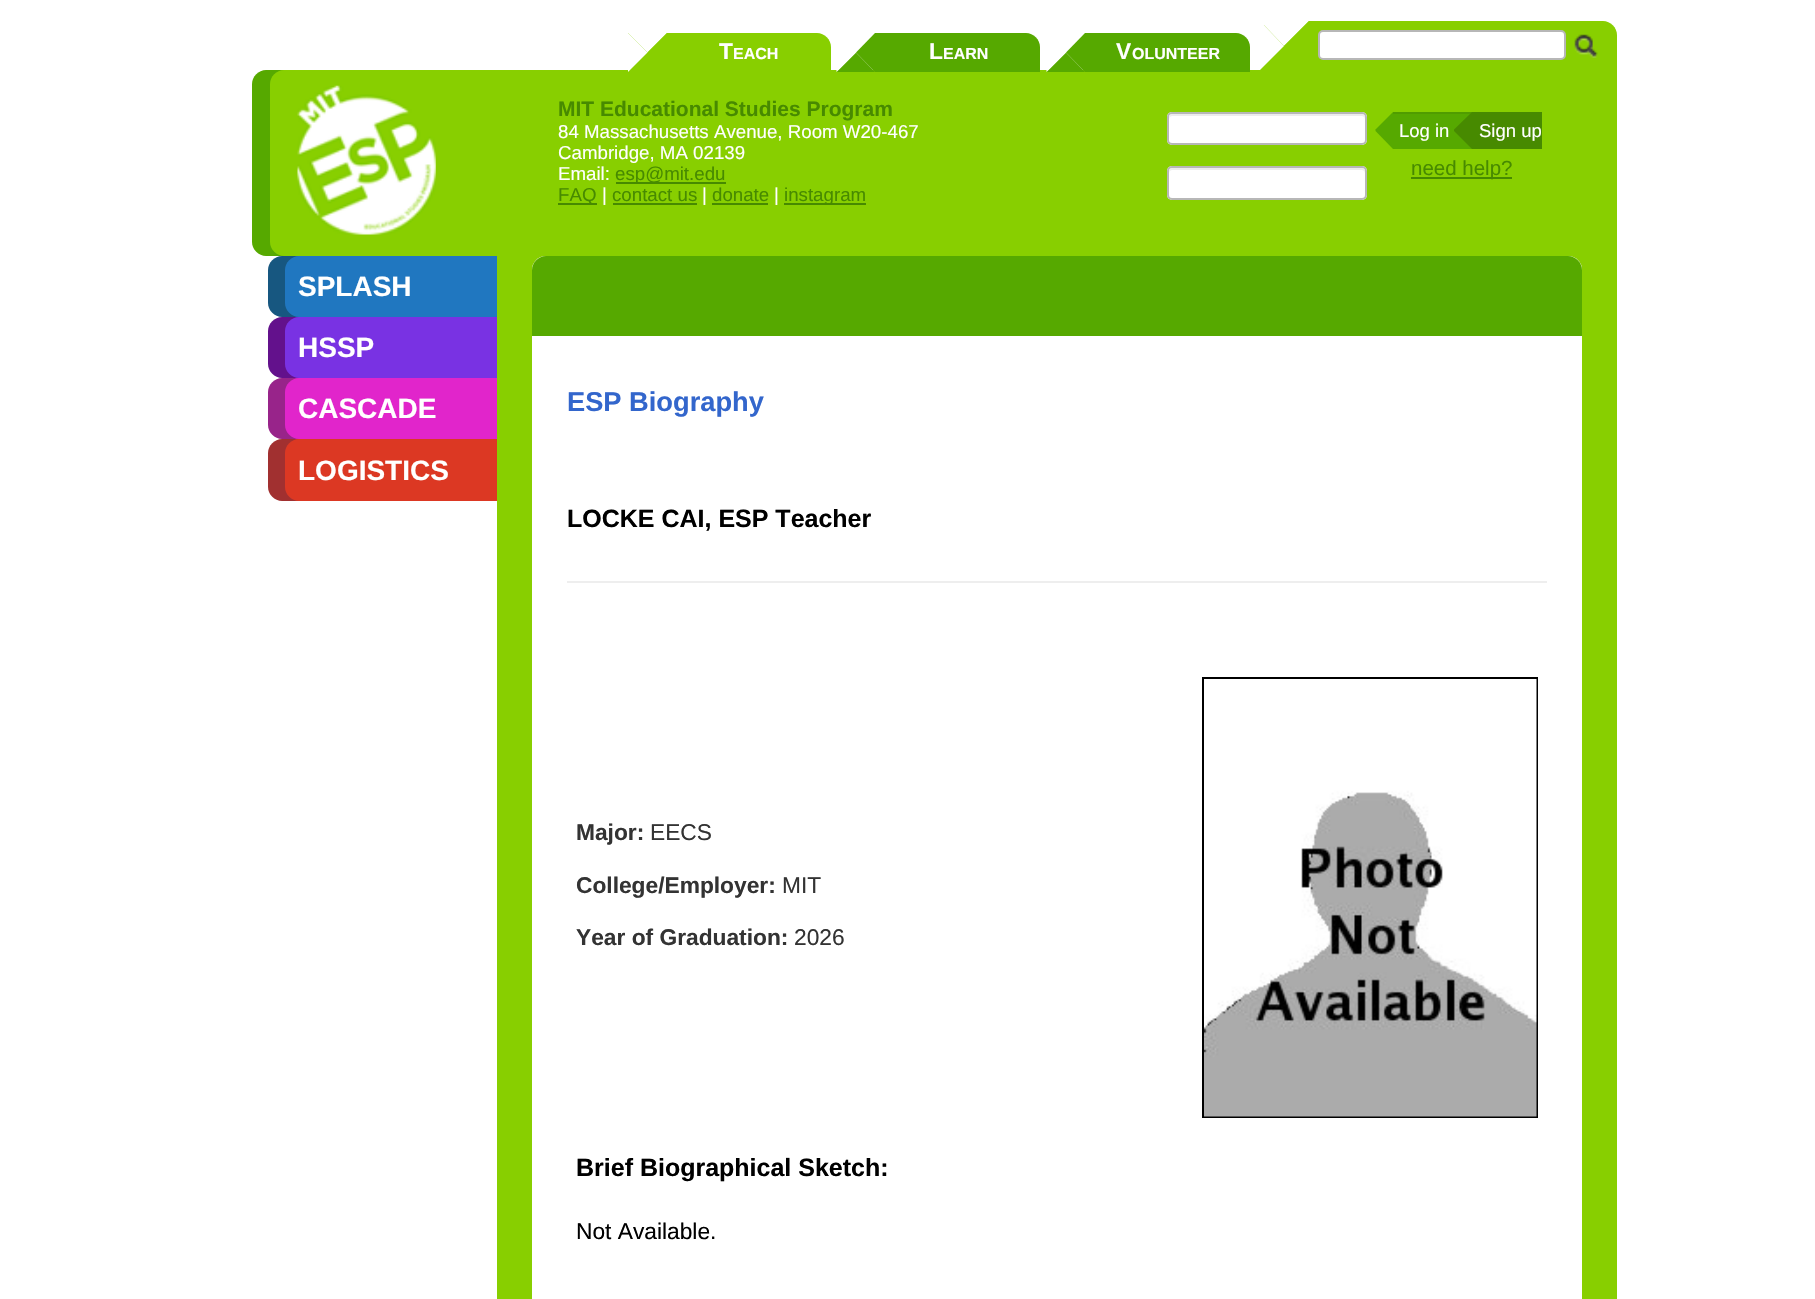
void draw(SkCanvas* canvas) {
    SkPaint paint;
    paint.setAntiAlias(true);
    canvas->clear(0xFFFFFFFF);
    paint.setColor(0xFF56A900);
    canvas->drawPath(SkPathBuilder().moveTo(266, 70).lineTo(287, 70).lineTo(287, 256).lineTo(266, 256).cubicTo(258.5f, 256, 252, 249.5f, 252, 242).lineTo(252, 84).cubicTo(252, 76.5f, 258.5f, 70, 266, 70).close().detach(), paint);
    paint.setColor(0xFF88CF00);
    canvas->drawPath(SkPathBuilder().moveTo(284, 70).lineTo(497, 70).lineTo(497, 256).lineTo(284, 256).cubicTo(276.5f, 256, 270, 249.5f, 270, 242).lineTo(270, 84).cubicTo(270, 76.5f, 276.5f, 70, 284, 70).close().detach(), paint);
    canvas->drawImageRect(SkImages::DeferredFromEncodedData(SkData::MakeFromFileName("img1.png")), SkRect::MakeXYWH(297, 85, 139, 150), SkSamplingOptions());
    paint.setColor(0xFF175780);
    canvas->drawPath(SkPathBuilder().moveTo(282, 256).lineTo(303, 256).lineTo(303, 317).lineTo(282, 317).cubicTo(274.5f, 317, 268, 310.5f, 268, 303).lineTo(268, 270).cubicTo(268, 262.5f, 274.5f, 256, 282, 256).close().detach(), paint);
    paint.setColor(0xFF2077C0);
    canvas->drawPath(SkPathBuilder().moveTo(299, 256).lineTo(497, 256).lineTo(497, 317).lineTo(299, 317).cubicTo(291.5f, 317, 285, 310.5f, 285, 303).lineTo(285, 270).cubicTo(285, 262.5f, 291.5f, 256, 299, 256).close().detach(), paint);
    SkFont font1(fontMgr->matchFamilyStyle("Liberation Sans", SkFontStyle::Bold()), 28);
    font1.setSubpixel(true);
    paint.setColor(0xFFFFFFFF);
    canvas->drawString("SPLASH", 298, 296, font1, paint);
    paint.setColor(0xFF63118C);
    canvas->drawPath(SkPathBuilder().moveTo(282, 317).lineTo(303, 317).lineTo(303, 378).lineTo(282, 378).cubicTo(274.5f, 378, 268, 371.5f, 268, 364).lineTo(268, 331).cubicTo(268, 323.5f, 274.5f, 317, 282, 317).close().detach(), paint);
    paint.setColor(0xFF7932E3);
    canvas->drawPath(SkPathBuilder().moveTo(299, 317).lineTo(497, 317).lineTo(497, 378).lineTo(299, 378).cubicTo(291.5f, 378, 285, 371.5f, 285, 364).lineTo(285, 331).cubicTo(285, 323.5f, 291.5f, 317, 299, 317).close().detach(), paint);
    paint.setColor(0xFFFFFFFF);
    canvas->drawString("HSSP", 298, 357, font1, paint);
    paint.setColor(0xFF98248A);
    canvas->drawPath(SkPathBuilder().moveTo(282, 378).lineTo(303, 378).lineTo(303, 439).lineTo(282, 439).cubicTo(274.5f, 439, 268, 432.5f, 268, 425).lineTo(268, 392).cubicTo(268, 384.5f, 274.5f, 378, 282, 378).close().detach(), paint);
    paint.setColor(0xFFE125CB);
    canvas->drawPath(SkPathBuilder().moveTo(299, 378).lineTo(497, 378).lineTo(497, 439).lineTo(299, 439).cubicTo(291.5f, 439, 285, 432.5f, 285, 425).lineTo(285, 392).cubicTo(285, 384.5f, 291.5f, 378, 299, 378).close().detach(), paint);
    paint.setColor(0xFFFFFFFF);
    canvas->drawString("CASCADE", 298, 418, font1, paint);
    paint.setColor(0xFFA13030);
    canvas->drawPath(SkPathBuilder().moveTo(282, 439).lineTo(303, 439).lineTo(303, 501).lineTo(282, 501).cubicTo(274.5f, 501, 268, 494.5f, 268, 487).lineTo(268, 453).cubicTo(268, 445.5f, 274.5f, 439, 282, 439).close().detach(), paint);
    paint.setColor(0xFFDC3823);
    canvas->drawPath(SkPathBuilder().moveTo(299, 439).lineTo(497, 439).lineTo(497, 501).lineTo(299, 501).cubicTo(291.5f, 501, 285, 494.5f, 285, 487).lineTo(285, 453).cubicTo(285, 445.5f, 291.5f, 439, 299, 439).close().detach(), paint);
    paint.setColor(0xFFFFFFFF);
    canvas->drawString("LOGISTICS", 298, 480, font1, paint);
    paint.setColor(0xFF88CF00);
    canvas->drawRect(SkRect::MakeXYWH(497, 70, 1120, 1229), paint);
    canvas->drawRect(SkRect::MakeXYWH(628, 33, 39, 37), paint);
    paint.setColor(0xFFFFFFFF);
    canvas->drawPath(SkPathBuilder().moveTo(628, 33).lineTo(667, 33).lineTo(647.5f, 52.5f).close().detach(), paint);
    paint.setColor(0xFF88CF00);
    canvas->drawPath(SkPathBuilder().moveTo(667, 33).lineTo(667, 72).lineTo(647.5f, 52.5f).close().detach(), paint);
    canvas->drawPath(SkPathBuilder().moveTo(667, 72).lineTo(628, 72).lineTo(647.5f, 52.5f).close().detach(), paint);
    paint.setColor(0xFFFFFFFF);
    canvas->drawPath(SkPathBuilder().moveTo(628, 72).lineTo(628, 33).lineTo(647.5f, 52.5f).close().detach(), paint);
    paint.setColor(0xFF88CF00);
    canvas->drawPath(SkPathBuilder().moveTo(667, 33).lineTo(817, 33).cubicTo(824.5f, 33, 831, 39.5f, 831, 47).lineTo(831, 72).lineTo(667, 72).close().detach(), paint);
    SkFont font2(fontMgr->matchFamilyStyle("Liberation Sans", SkFontStyle::Bold()), 22.75f);
    font2.setSubpixel(true);
    paint.setColor(0xFFFFFFFF);
    canvas->drawString("T", 719, 59, font2, paint);
    SkFont font3(fontMgr->matchFamilyStyle("Liberation Sans", SkFontStyle::Bold()), 16);
    font3.setSubpixel(true);
    canvas->drawString("EACH", 733, 59, font3, paint);
    paint.setColor(0xFF56A900);
    canvas->drawPath(SkPathBuilder().moveTo(875, 33).lineTo(875, 72).lineTo(856, 52.5f).close().detach(), paint);
    canvas->drawPath(SkPathBuilder().moveTo(875, 72).lineTo(836.5f, 72).lineTo(856, 52.5f).close().detach(), paint);
    paint.setColor(0xFFFFFFFF);
    canvas->drawPath(SkPathBuilder().moveTo(836.5f, 72).lineTo(836.5f, 33).lineTo(856, 52.5f).close().detach(), paint);
    paint.setColor(0xFF56A900);
    canvas->drawPath(SkPathBuilder().moveTo(875, 33).lineTo(1026, 33).cubicTo(1033.5f, 33, 1040, 39.5f, 1040, 47).lineTo(1040, 72).lineTo(875, 72).close().detach(), paint);
    paint.setColor(0xFFFFFFFF);
    canvas->drawString("L", 929, 59, font2, paint);
    canvas->drawString("EARN", 943, 59, font3, paint);
    paint.setColor(0xFF56A900);
    canvas->drawPath(SkPathBuilder().moveTo(1085, 33).lineTo(1085, 72).lineTo(1066, 52.5f).close().detach(), paint);
    canvas->drawPath(SkPathBuilder().moveTo(1085, 72).lineTo(1046.5f, 72).lineTo(1066, 52.5f).close().detach(), paint);
    paint.setColor(0xFFFFFFFF);
    canvas->drawPath(SkPathBuilder().moveTo(1046.5f, 72).lineTo(1046.5f, 33).lineTo(1066, 52.5f).close().detach(), paint);
    paint.setColor(0xFF56A900);
    canvas->drawPath(SkPathBuilder().moveTo(1085, 33).lineTo(1236, 33).cubicTo(1243.5f, 33, 1250, 39.5f, 1250, 47).lineTo(1250, 72).lineTo(1085, 72).close().detach(), paint);
    paint.setColor(0xFFFFFFFF);
    canvas->drawString("V", 1116, 59, font2, paint);
    canvas->drawString("OLUNTEER", 1132, 59, font3, paint);
    paint.setColor(0xFF88CF00);
    canvas->drawPath(SkPathBuilder().moveTo(1274, 21).lineTo(1603, 21).cubicTo(1610.5f, 21, 1617, 27.5f, 1617, 35).lineTo(1617, 70).lineTo(1260, 70).lineTo(1260, 35).cubicTo(1260, 27.5f, 1266.5f, 21, 1274, 21).close().detach(), paint);
    paint.setColor(0xFFFFFFFF);
    canvas->drawPath(SkPathBuilder().moveTo(1260, 21).lineTo(1309, 21).lineTo(1284, 46).close().detach(), paint);
    paint.setColor(0xFF88CF00);
    canvas->drawPath(SkPathBuilder().moveTo(1309, 21).lineTo(1309, 70).lineTo(1284, 46).close().detach(), paint);
    paint.setColor(0xFFFFFFFF);
    canvas->drawPath(SkPathBuilder().moveTo(1260, 70).lineTo(1260, 21).lineTo(1284, 46).close().detach(), paint);
    canvas->drawRoundRect(SkRect::MakeXYWH(1319, 31, 246, 28), 4, 4, paint);
    paint.setStyle(SkPaint::kStroke_Style);
    paint.setStrokeWidth(2);
    paint.setColor(0xFFB7B7B7);
    canvas->drawRoundRect(SkRect::MakeXYWH(1319, 31, 246, 28), 4, 4, paint);
    canvas->drawImageRect(SkImages::DeferredFromEncodedData(SkData::MakeFromFileName("img2.png")), SkRect::MakeXYWH(1574, 34, 24, 24), SkSamplingOptions());
    SkFont font4(fontMgr->matchFamilyStyle("Liberation Sans", SkFontStyle::Bold()), 21);
    font4.setSubpixel(true);
    paint.setStyle(SkPaint::kFill_Style);
    paint.setColor(0xFF478A00);
    canvas->drawString("MIT Educational Studies Program", 558, 116, font4, paint);
    SkFont font5(fontMgr->matchFamilyStyle("Liberation Sans", SkFontStyle::Normal()), 18.7f);
    font5.setSubpixel(true);
    paint.setColor(0xFFFFFFFF);
    canvas->drawString("84 Massachusetts Avenue, Room W20-467", 558, 138, font5, paint);
    canvas->drawString("Cambridge, MA 02139", 558, 159, font5, paint);
    canvas->drawString("Email:", 558, 180, font5, paint);
    paint.setColor(0xFF478A00);
    canvas->drawRect(SkRect::MakeXYWH(616, 182, 110, 2), paint);
    canvas->drawString("esp@mit.edu", 615, 180, font5, paint);
    canvas->drawRect(SkRect::MakeXYWH(558, 203, 39, 2), paint);
    canvas->drawString("FAQ", 558, 201, font5, paint);
    paint.setColor(0xFFFFFFFF);
    canvas->drawString("|", 602, 201, font5, paint);
    paint.setColor(0xFF478A00);
    canvas->drawString("contact us", 612, 201, font5, paint);
    canvas->drawRect(SkRect::MakeXYWH(613, 203, 84, 2), paint);
    paint.setColor(0xFFFFFFFF);
    canvas->drawString("|", 702, 201, font5, paint);
    paint.setColor(0xFF478A00);
    canvas->drawString("donate", 712, 201, font5, paint);
    canvas->drawRect(SkRect::MakeXYWH(712, 203, 56, 2), paint);
    paint.setColor(0xFFFFFFFF);
    canvas->drawString("|", 774, 201, font5, paint);
    paint.setColor(0xFF478A00);
    canvas->drawRect(SkRect::MakeXYWH(784, 203, 82, 2), paint);
    canvas->drawString("instagram", 784, 201, font5, paint);
    paint.setColor(0xFFFFFFFF);
    canvas->drawRoundRect(SkRect::MakeXYWH(1167, 112, 200, 33), 5, 5, paint);
    paint.setColor(0xFFECECEC);
    canvas->drawPath(SkPathBuilder().moveTo(1172, 116).lineTo(1362, 116).cubicTo(1363, 116, 1365, 117, 1365, 119).lineTo(1365, 118).cubicTo(1365, 116, 1363, 114, 1361, 114).lineTo(1173, 114).cubicTo(1171, 114, 1169, 116, 1169, 118).lineTo(1169, 119).cubicTo(1169, 117, 1171, 116, 1172, 116).close().detach(), paint);
    paint.setStyle(SkPaint::kStroke_Style);
    paint.setColor(0xFFB7B7B7);
    canvas->drawRoundRect(SkRect::MakeXYWH(1168, 113, 198, 31), 4, 4, paint);
    paint.setStyle(SkPaint::kFill_Style);
    paint.setColor(0xFF56A900);
    canvas->drawPath(SkPathBuilder().moveTo(1393, 112).lineTo(1393, 149).lineTo(1375.5f, 131).lineTo(1375.5f, 129.5f).close().detach(), paint);
    canvas->drawRect(SkRect::MakeXYWH(1393, 114, 79, 35), paint);
    paint.setColor(0xFF509C00);
    canvas->drawRect(SkRect::MakeXYWH(1393, 112, 79, 2), paint);
    SkFont font6(fontMgr->matchFamilyStyle("Liberation Sans", SkFontStyle::Normal()), 18.5f);
    font6.setSubpixel(true);
    paint.setColor(0xFFFFFFFF);
    canvas->drawString("Log in", 1399, 137, font6, paint);
    paint.setColor(0xFF478A00);
    canvas->drawPath(SkPathBuilder().moveTo(1472, 112).lineTo(1472, 149).lineTo(1454, 131).lineTo(1454, 129.5f).close().detach(), paint);
    canvas->drawRect(SkRect::MakeXYWH(1472, 112, 70, 37), paint);
    paint.setColor(0xFFFFFFFF);
    canvas->drawString("Sign up", 1479, 137, font6, paint);
    canvas->drawRoundRect(SkRect::MakeXYWH(1167, 166, 200, 34), 5, 5, paint);
    paint.setColor(0xFFECECEC);
    canvas->drawPath(SkPathBuilder().moveTo(1172, 170).lineTo(1362, 170).cubicTo(1363, 170, 1365, 171, 1365, 173).lineTo(1365, 172).cubicTo(1365, 170, 1363, 168, 1361, 168).lineTo(1173, 168).cubicTo(1171, 168, 1169, 170, 1169, 172).lineTo(1169, 173).cubicTo(1169, 171, 1171, 170, 1172, 170).close().detach(), paint);
    paint.setStyle(SkPaint::kStroke_Style);
    paint.setColor(0xFFB7B7B7);
    canvas->drawRoundRect(SkRect::MakeXYWH(1168, 167, 198, 32), 4, 4, paint);
    paint.setStyle(SkPaint::kFill_Style);
    paint.setColor(0xFF478A00);
    canvas->drawRect(SkRect::MakeXYWH(1411, 177, 101, 2), paint);
    SkFont font7(fontMgr->matchFamilyStyle("Liberation Sans", SkFontStyle::Normal()), 20.5f);
    font7.setSubpixel(true);
    canvas->drawString("need help?", 1411, 175, font7, paint);
    paint.setColor(0xFFFFFFFF);
    canvas->drawRoundRect(SkRect::MakeXYWH(532, 256, 1050, 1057), 14, 14, paint);
    paint.setColor(0xFF56A900);
    canvas->drawPath(SkPathBuilder().moveTo(546, 256).lineTo(1568, 256).cubicTo(1575.5f, 256, 1582, 262.5f, 1582, 270).lineTo(1582, 336).lineTo(532, 336).lineTo(532, 270).cubicTo(532, 262.5f, 538.5f, 256, 546, 256).close().detach(), paint);
    SkFont font8(fontMgr->matchFamilyStyle("Liberation Sans", SkFontStyle::Bold()), 27.25f);
    font8.setSubpixel(true);
    paint.setColor(0xFF3366CC);
    canvas->drawString("ESP Biography", 567, 411, font8, paint);
    SkFont font9(fontMgr->matchFamilyStyle("Liberation Sans", SkFontStyle::Bold()), 25);
    font9.setSubpixel(true);
    paint.setColor(0xFF000000);
    canvas->drawString("LOCKE CAI, ESP Teacher", 567, 527, font9, paint);
    paint.setColor(0xFFEEEEEE);
    canvas->drawRect(SkRect::MakeXYWH(567, 581, 980, 2), paint);
    paint.setColor(0xFF333333);
    canvas->drawString("Major:", 576, 840, font2, paint);
    SkFont font10(fontMgr->matchFamilyStyle("Liberation Sans", SkFontStyle::Normal()), 22.75f);
    font10.setSubpixel(true);
    canvas->drawString("EECS", 650, 840, font10, paint);
    canvas->drawString("College/Employer:", 576, 893, font2, paint);
    canvas->drawString("MIT", 782, 893, font10, paint);
    canvas->drawString("Year of Graduation:", 576, 945, font2, paint);
    canvas->drawString("2026", 794, 945, font10, paint);
    paint.setStyle(SkPaint::kStroke_Style);
    paint.setColor(0xFF000000);
    canvas->drawRect(SkRect::MakeXYWH(1203, 678, 334, 439), paint);
    canvas->drawImageRect(SkImages::DeferredFromEncodedData(SkData::MakeFromFileName("img3.png")), SkRect::MakeXYWH(1204, 679, 333, 438), SkSamplingOptions());
    paint.setStyle(SkPaint::kFill_Style);
    canvas->drawString("Brief Biographical Sketch:", 576, 1176, font9, paint);
    canvas->drawString("Not Available.", 576, 1239, font10, paint);
}
